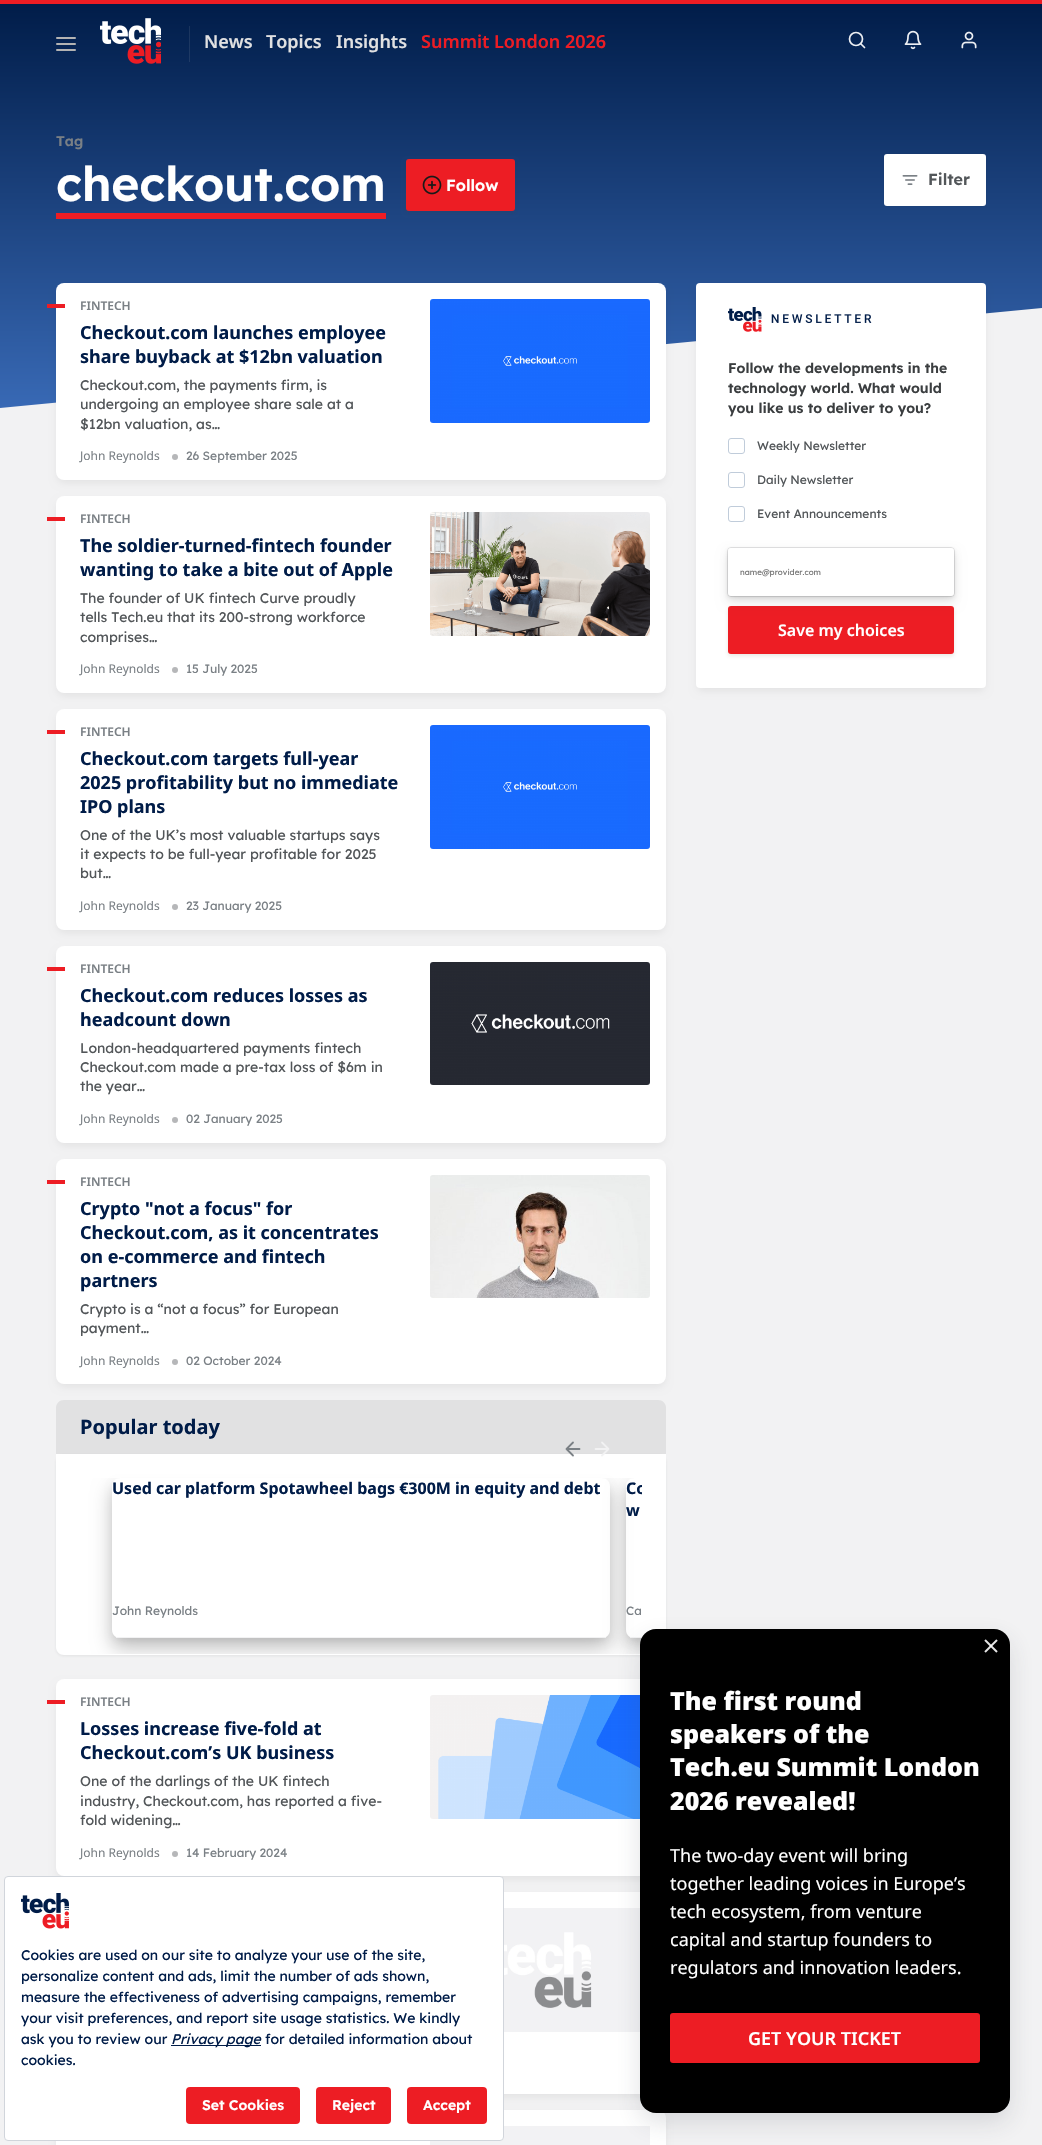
void draw(SkCanvas* canvas) {
    SkPaint paint;
    paint.setAntiAlias(true);
    auto spacedText = [&](const char* s, float x, float y, const SkFont& font, const SkPaint& ink, float letter, float word) {
        std::vector<SkGlyphID> glyphs(font.countText(s, strlen(s), SkTextEncoding::kUTF8));
        std::vector<float> xs(glyphs.size());
        font.textToGlyphs(s, strlen(s), SkTextEncoding::kUTF8, glyphs);
        font.getXPos(glyphs, xs, x);
        float extra = 0;
        for (size_t i = 0; i < glyphs.size(); i++) {
            xs[i] += extra;
            extra += letter + word * (glyphs[i] == font.unicharToGlyph(' '));
        }
        canvas->drawTextBlob(SkTextBlob::MakeFromPosHGlyphs(glyphs, xs, y, font), 0, 0, ink);
    };
    canvas->clear(0xFFF2F2F3);
    paint.setColor(0xFFED1D24);
    canvas->drawRect(SkRect::MakeXYWH(0, 0, 1042, 4), paint);
    {
        const SkColor colors[] = {0xFF001C48, 0xFF3869B5};
        const float stops[] = {0, 1};
        const SkPoint ends[] = {{521, 0}, {521, 408}};
        paint.setShader(SkGradientShader::MakeLinear(ends, colors, stops, 2, SkTileMode::kClamp));
        paint.setAlpha(255);
    }
    canvas->drawRect(SkRect::MakeXYWH(0, 4, 1042, 404), paint);
    paint.setShader(nullptr);
    paint.setColor(0xFFB3B3B3);
    canvas->drawRoundRect(SkRect::MakeXYWH(56, 37, 20, 2), 1, 1, paint);
    canvas->drawRoundRect(SkRect::MakeXYWH(56, 43, 20, 2), 1, 1, paint);
    canvas->drawRoundRect(SkRect::MakeXYWH(56, 49, 20, 2), 1, 1, paint);
    canvas->drawImageRect(SkImages::DeferredFromEncodedData(SkData::MakeFromFileName("img1.png")), SkRect::MakeXYWH(100, 18, 61, 46), SkSamplingOptions());
    SkFont font1(fontMgr->matchFamilyStyle("Noto Sans", SkFontStyle(600, SkFontStyle::kNormal_Width, SkFontStyle::kUpright_Slant)), 18);
    font1.setSubpixel(true);
    paint.setColor(0xFFE1E1E2);
    canvas->drawString("News", 204, 48, font1, paint);
    canvas->drawString("Topics", 266, 48, font1, paint);
    canvas->drawString("Insights", 336, 48, font1, paint);
    paint.setColor(0xFFED1C24);
    canvas->drawString("Summit London 2026", 421, 48, font1, paint);
    paint.setStyle(SkPaint::kStroke_Style);
    paint.setStrokeWidth(1.7f);
    paint.setColor(0xFFEDEFF3);
    canvas->drawCircle(856, 39, 6.5f, paint);
    paint.setStrokeCap(SkPaint::kRound_Cap);
    paint.setStrokeJoin(SkPaint::kRound_Join);
    canvas->drawPath(SkPathBuilder().moveTo(864.5f, 47.5f).lineTo(861, 44).detach(), paint);
    canvas->drawImageRect(SkImages::DeferredFromEncodedData(SkData::MakeFromFileName("img2.png")), SkRect::MakeXYWH(904, 30, 18, 20), SkSamplingOptions());
    canvas->drawImageRect(SkImages::DeferredFromEncodedData(SkData::MakeFromFileName("img3.png")), SkRect::MakeXYWH(961, 31, 16, 18), SkSamplingOptions());
    paint.setStyle(SkPaint::kFill_Style);
    {
        const SkColor colors[] = {0xFF173057, 0xFF4975BA};
        const float stops[] = {0, 1};
        const SkPoint ends[] = {{521, 0}, {521, 408}};
        paint.setShader(SkGradientShader::MakeLinear(ends, colors, stops, 2, SkTileMode::kClamp));
        paint.setAlpha(255);
    }
    canvas->drawRect(SkRect::MakeXYWH(189, 26, 1, 36), paint);
    SkFont font2(fontMgr->matchFamilyStyle("Lexend Deca", SkFontStyle(600, SkFontStyle::kNormal_Width, SkFontStyle::kUpright_Slant)), 14);
    font2.setSubpixel(true);
    paint.setShader(nullptr);
    paint.setColor(0xFF7A8085);
    canvas->drawString("Tag", 56, 146, font2, paint);
    SkFont font3(fontMgr->matchFamilyStyle("Lexend Deca", SkFontStyle(600, SkFontStyle::kNormal_Width, SkFontStyle::kUpright_Slant)), 48);
    font3.setSubpixel(true);
    paint.setColor(0xFFFFFFFF);
    spacedText("checkout.com", 56, 201, font3, paint, -0.25f, 0);
    paint.setColor(0xFFED1D24);
    canvas->drawRect(SkRect::MakeXYWH(56, 213, 330, 6), paint);
    paint.setColor(0x1F4D451A);
    paint.setMaskFilter(SkMaskFilter::MakeBlur(kNormal_SkBlurStyle, 2));
    canvas->drawRoundRect(SkRect::MakeXYWH(406, 161, 109, 52), 3, 3, paint);
    paint.setMaskFilter(nullptr);
    paint.setColor(0xFFED1D24);
    canvas->drawRoundRect(SkRect::MakeXYWH(406, 159, 109, 52), 3, 3, paint);
    canvas->drawImageRect(SkImages::DeferredFromEncodedData(SkData::MakeFromFileName("img4.png")), SkRect::MakeXYWH(422, 175, 20, 20), SkSamplingOptions());
    SkFont font4(fontMgr->matchFamilyStyle("Lexend Deca", SkFontStyle(600, SkFontStyle::kNormal_Width, SkFontStyle::kUpright_Slant)), 16);
    font4.setSubpixel(true);
    paint.setColor(0xFFFFFFFF);
    canvas->drawString("Follow", 446, 191, font4, paint);
    paint.setStyle(SkPaint::kStroke_Style);
    paint.setStrokeWidth(1);
    paint.setStrokeCap(SkPaint::kButt_Cap);
    paint.setStrokeJoin(SkPaint::kMiter_Join);
    paint.setColor(0x0A19191A);
    canvas->drawRect(SkRect::MakeXYWH(883.5f, 153.5f, 103, 53), paint);
    paint.setStyle(SkPaint::kFill_Style);
    paint.setColor(0xFFFFFFFF);
    canvas->drawRoundRect(SkRect::MakeXYWH(884, 154, 102, 52), 3, 3, paint);
    canvas->drawImageRect(SkImages::DeferredFromEncodedData(SkData::MakeFromFileName("img5.png")), SkRect::MakeXYWH(902, 175, 16, 10), SkSamplingOptions());
    paint.setColor(0xFF525659);
    canvas->drawString("Filter", 928, 185, font4, paint);
    paint.setColor(0xFFF2F2F3);
    canvas->drawPath(SkPathBuilder().moveTo(0, 408).lineTo(1042, 308).lineTo(1042, 408).close().detach(), paint);
    paint.setColor(0x14000000);
    paint.setMaskFilter(SkMaskFilter::MakeBlur(kNormal_SkBlurStyle, 4));
    canvas->drawRoundRect(SkRect::MakeXYWH(58, 289, 606, 193), 6, 6, paint);
    paint.setMaskFilter(nullptr);
    paint.setColor(0xFFFFFFFF);
    canvas->drawRoundRect(SkRect::MakeXYWH(56, 283, 610, 197), 8, 8, paint);
    paint.setColor(0xFFED1D24);
    canvas->drawRect(SkRect::MakeXYWH(47, 304, 18, 4), paint);
    SkFont font5(fontMgr->matchFamilyStyle("Noto Sans", SkFontStyle(600, SkFontStyle::kNormal_Width, SkFontStyle::kUpright_Slant)), 12);
    font5.setSubpixel(true);
    paint.setColor(0xFF7A8085);
    canvas->drawString("FINTECH", 80, 310, font5, paint);
    SkFont font6(fontMgr->matchFamilyStyle("Noto Sans", SkFontStyle::Bold()), 18);
    font6.setSubpixel(true);
    paint.setColor(0xFF001C48);
    canvas->drawString("Checkout.com launches employee", 80, 339, font6, paint);
    canvas->drawString("share buyback at $12bn valuation", 80, 363, font6, paint);
    SkFont font7(fontMgr->matchFamilyStyle("Lexend Deca", SkFontStyle::Normal()), 14);
    font7.setSubpixel(true);
    paint.setColor(0xFF525659);
    canvas->drawString("Checkout.com, the payments firm, is", 80, 390, font7, paint);
    canvas->drawString("undergoing an employee share sale at a", 80, 409, font7, paint);
    canvas->drawString("$12bn valuation, as…", 80, 429, font7, paint);
    canvas->drawImageRect(SkImages::DeferredFromEncodedData(SkData::MakeFromFileName("img6.png")), SkRect::MakeXYWH(430, 299, 220, 124), SkSamplingOptions());
    SkFont font8(fontMgr->matchFamilyStyle("Noto Sans", SkFontStyle::Normal()), 12);
    font8.setSubpixel(true);
    paint.setColor(0xFF7A8085);
    canvas->drawString("John Reynolds", 80, 460, font8, paint);
    paint.setColor(0xFFB6B7B9);
    canvas->drawCircle(175, 457, 3, paint);
    SkFont font9(fontMgr->matchFamilyStyle("Lexend Deca", SkFontStyle::Normal()), 12);
    font9.setSubpixel(true);
    paint.setColor(0xFF7A8085);
    canvas->drawString("26 September 2025", 186, 460, font9, paint);
    paint.setColor(0x14000000);
    paint.setMaskFilter(SkMaskFilter::MakeBlur(kNormal_SkBlurStyle, 4));
    canvas->drawRoundRect(SkRect::MakeXYWH(58, 502, 606, 193), 6, 6, paint);
    paint.setMaskFilter(nullptr);
    paint.setColor(0xFFFFFFFF);
    canvas->drawRoundRect(SkRect::MakeXYWH(56, 496, 610, 197), 8, 8, paint);
    paint.setColor(0xFFED1D24);
    canvas->drawRect(SkRect::MakeXYWH(47, 517, 18, 4), paint);
    paint.setColor(0xFF7A8085);
    canvas->drawString("FINTECH", 80, 523, font5, paint);
    paint.setColor(0xFF001C48);
    canvas->drawString("The soldier-turned-fintech founder", 80, 552, font6, paint);
    canvas->drawString("wanting to take a bite out of Apple", 80, 576, font6, paint);
    paint.setColor(0xFF525659);
    canvas->drawString("The founder of UK fintech Curve proudly", 80, 603, font7, paint);
    canvas->drawString("tells Tech.eu that its 200-strong workforce", 80, 622, font7, paint);
    canvas->drawString("comprises…", 80, 642, font7, paint);
    canvas->drawImageRect(SkImages::DeferredFromEncodedData(SkData::MakeFromFileName("img7.png")), SkRect::MakeXYWH(430, 512, 220, 124), SkSamplingOptions());
    paint.setColor(0xFF7A8085);
    canvas->drawString("John Reynolds", 80, 673, font8, paint);
    paint.setColor(0xFFB6B7B9);
    canvas->drawCircle(175, 670, 3, paint);
    paint.setColor(0xFF7A8085);
    canvas->drawString("15 July 2025", 186, 673, font9, paint);
    paint.setColor(0x14000000);
    paint.setMaskFilter(SkMaskFilter::MakeBlur(kNormal_SkBlurStyle, 4));
    canvas->drawRoundRect(SkRect::MakeXYWH(58, 715, 606, 217), 6, 6, paint);
    paint.setMaskFilter(nullptr);
    paint.setColor(0xFFFFFFFF);
    canvas->drawRoundRect(SkRect::MakeXYWH(56, 709, 610, 221), 8, 8, paint);
    paint.setColor(0xFFED1D24);
    canvas->drawRect(SkRect::MakeXYWH(47, 730, 18, 4), paint);
    paint.setColor(0xFF7A8085);
    canvas->drawString("FINTECH", 80, 736, font5, paint);
    paint.setColor(0xFF001C48);
    canvas->drawString("Checkout.com targets full-year", 80, 765, font6, paint);
    canvas->drawString("2025 profitability but no immediate", 80, 789, font6, paint);
    canvas->drawString("IPO plans", 80, 813, font6, paint);
    paint.setColor(0xFF525659);
    canvas->drawString("One of the UK’s most valuable startups says", 80, 840, font7, paint);
    canvas->drawString("it expects to be full-year profitable for 2025", 80, 859, font7, paint);
    canvas->drawString("but…", 80, 878, font7, paint);
    canvas->drawImageRect(SkImages::DeferredFromEncodedData(SkData::MakeFromFileName("img6.png")), SkRect::MakeXYWH(430, 725, 220, 124), SkSamplingOptions());
    paint.setColor(0xFF7A8085);
    canvas->drawString("John Reynolds", 80, 910, font8, paint);
    paint.setColor(0xFFB6B7B9);
    canvas->drawCircle(175, 907, 3, paint);
    paint.setColor(0xFF7A8085);
    canvas->drawString("23 January 2025", 186, 910, font9, paint);
    paint.setColor(0x14000000);
    paint.setMaskFilter(SkMaskFilter::MakeBlur(kNormal_SkBlurStyle, 4));
    canvas->drawRoundRect(SkRect::MakeXYWH(58, 952, 606, 193), 6, 6, paint);
    paint.setMaskFilter(nullptr);
    paint.setColor(0xFFFFFFFF);
    canvas->drawRoundRect(SkRect::MakeXYWH(56, 946, 610, 197), 8, 8, paint);
    paint.setColor(0xFFED1D24);
    canvas->drawRect(SkRect::MakeXYWH(47, 967, 18, 4), paint);
    paint.setColor(0xFF7A8085);
    canvas->drawString("FINTECH", 80, 973, font5, paint);
    paint.setColor(0xFF001C48);
    canvas->drawString("Checkout.com reduces losses as", 80, 1002, font6, paint);
    canvas->drawString("headcount down", 80, 1026, font6, paint);
    paint.setColor(0xFF525659);
    canvas->drawString("London-headquartered payments fintech", 80, 1053, font7, paint);
    canvas->drawString("Checkout.com made a pre-tax loss of $6m in", 80, 1072, font7, paint);
    canvas->drawString("the year…", 80, 1091, font7, paint);
    canvas->drawImageRect(SkImages::DeferredFromEncodedData(SkData::MakeFromFileName("img8.png")), SkRect::MakeXYWH(430, 962, 220, 123), SkSamplingOptions());
    paint.setColor(0xFF7A8085);
    canvas->drawString("John Reynolds", 80, 1123, font8, paint);
    paint.setColor(0xFFB6B7B9);
    canvas->drawCircle(175, 1120, 3, paint);
    paint.setColor(0xFF7A8085);
    canvas->drawString("02 January 2025", 186, 1123, font9, paint);
    paint.setColor(0x14000000);
    paint.setMaskFilter(SkMaskFilter::MakeBlur(kNormal_SkBlurStyle, 4));
    canvas->drawRoundRect(SkRect::MakeXYWH(58, 1165, 606, 221), 6, 6, paint);
    paint.setMaskFilter(nullptr);
    paint.setColor(0xFFFFFFFF);
    canvas->drawRoundRect(SkRect::MakeXYWH(56, 1159, 610, 225), 8, 8, paint);
    paint.setColor(0xFFED1D24);
    canvas->drawRect(SkRect::MakeXYWH(47, 1180, 18, 4), paint);
    paint.setColor(0xFF7A8085);
    canvas->drawString("FINTECH", 80, 1186, font5, paint);
    paint.setColor(0xFF001C48);
    canvas->drawString("Crypto \"not a focus\" for", 80, 1215, font6, paint);
    canvas->drawString("Checkout.com, as it concentrates", 80, 1239, font6, paint);
    canvas->drawString("on e-commerce and fintech", 80, 1263, font6, paint);
    canvas->drawString("partners", 80, 1287, font6, paint);
    paint.setColor(0xFF525659);
    canvas->drawString("Crypto is a “not a focus” for European", 80, 1314, font7, paint);
    canvas->drawString("payment…", 80, 1333, font7, paint);
    canvas->drawImageRect(SkImages::DeferredFromEncodedData(SkData::MakeFromFileName("img9.png")), SkRect::MakeXYWH(430, 1175, 220, 123), SkSamplingOptions());
    paint.setColor(0xFF7A8085);
    canvas->drawString("John Reynolds", 80, 1365, font8, paint);
    paint.setColor(0xFFB6B7B9);
    canvas->drawCircle(175, 1362, 3, paint);
    paint.setColor(0xFF7A8085);
    canvas->drawString("02 October 2024", 186, 1365, font9, paint);
    paint.setColor(0xFFE1E1E2);
    canvas->drawPath(SkPathBuilder().moveTo(64, 1400).lineTo(658, 1400).cubicTo(662.5f, 1400, 666, 1403.5f, 666, 1408).lineTo(666, 1454).lineTo(56, 1454).lineTo(56, 1408).cubicTo(56, 1403.5f, 59.5f, 1400, 64, 1400).close().detach(), paint);
    SkFont font10(fontMgr->matchFamilyStyle("Noto Sans", SkFontStyle::Bold()), 20);
    font10.setSubpixel(true);
    paint.setColor(0xFF001C48);
    canvas->drawString("Popular today", 80, 1434, font10, paint);
    paint.setColor(0x141A202C);
    paint.setMaskFilter(SkMaskFilter::MakeBlur(kNormal_SkBlurStyle, 1.5f));
    canvas->drawRoundRect(SkRect::MakeXYWH(56, 1455, 610, 201), 8, 8, paint);
    paint.setMaskFilter(nullptr);
    paint.setColor(0xFFFFFFFF);
    canvas->drawPath(SkPathBuilder().moveTo(56, 1454).lineTo(666, 1454).lineTo(666, 1647).cubicTo(666, 1651.5f, 662.5f, 1655, 658, 1655).lineTo(64, 1655).cubicTo(59.5f, 1655, 56, 1651.5f, 56, 1647).close().detach(), paint);
    paint.setStyle(SkPaint::kStroke_Style);
    paint.setStrokeWidth(1.8f);
    paint.setStrokeCap(SkPaint::kRound_Cap);
    paint.setStrokeJoin(SkPaint::kRound_Join);
    paint.setColor(0xFF7A8085);
    canvas->drawPath(SkPathBuilder().moveTo(579.5f, 1449).lineTo(566.5f, 1449).moveTo(573, 1455.5f).lineTo(566.5f, 1449).lineTo(573, 1442.5f).detach(), paint);
    paint.setColor(0xFFF2F2F3);
    canvas->drawPath(SkPathBuilder().moveTo(595.5f, 1449).lineTo(608.5f, 1449).moveTo(602, 1442.5f).lineTo(608.5f, 1449).lineTo(602, 1455.5f).detach(), paint);
    canvas->save();
    canvas->clipPath(SkPathBuilder(SkPathFillType::kEvenOdd).moveTo(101, 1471).lineTo(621, 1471).lineTo(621, 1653).lineTo(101, 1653).close().moveTo(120, 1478).lineTo(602, 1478).cubicTo(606.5f, 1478, 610, 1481.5f, 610, 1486).lineTo(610, 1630).cubicTo(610, 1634.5f, 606.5f, 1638, 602, 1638).lineTo(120, 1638).cubicTo(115.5f, 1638, 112, 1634.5f, 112, 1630).lineTo(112, 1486).cubicTo(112, 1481.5f, 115.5f, 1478, 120, 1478).close().detach(), true);
    paint.setStyle(SkPaint::kFill_Style);
    paint.setColor(0x14000000);
    paint.setMaskFilter(SkMaskFilter::MakeBlur(kNormal_SkBlurStyle, 4));
    canvas->drawRoundRect(SkRect::MakeXYWH(114, 1484, 494, 156), 6, 6, paint);
    paint.setMaskFilter(nullptr);
    canvas->restore();
    canvas->save();
    canvas->clipRect(SkRect::MakeXYWH(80, 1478, 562, 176));
    canvas->clipPath(SkPathBuilder(SkPathFillType::kEvenOdd).moveTo(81, 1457).lineTo(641, 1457).lineTo(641, 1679).lineTo(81, 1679).close().moveTo(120, 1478).lineTo(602, 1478).cubicTo(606.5f, 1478, 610, 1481.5f, 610, 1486).lineTo(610, 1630).cubicTo(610, 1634.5f, 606.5f, 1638, 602, 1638).lineTo(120, 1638).cubicTo(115.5f, 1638, 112, 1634.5f, 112, 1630).lineTo(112, 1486).cubicTo(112, 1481.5f, 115.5f, 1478, 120, 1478).close().detach(), true);
    paint.setColor(0x3D000000);
    paint.setMaskFilter(SkMaskFilter::MakeBlur(kNormal_SkBlurStyle, 10));
    canvas->drawRoundRect(SkRect::MakeXYWH(112, 1488, 498, 160), 8, 8, paint);
    paint.setMaskFilter(nullptr);
    canvas->restore();
    paint.setColor(0xFFF2F2F3);
    canvas->drawRect(SkRect::MakeXYWH(116, 1637, 490, 1), paint);
    SkFont font11(fontMgr->matchFamilyStyle("Noto Sans", SkFontStyle::Bold()), 16);
    font11.setSubpixel(true);
    paint.setColor(0xFF001C48);
    canvas->drawString("Used car platform Spotawheel bags €300M in equity and debt", 112, 1494, font11, paint);
    paint.setColor(0xFF7A8085);
    canvas->drawString("John Reynolds", 112, 1615, font9, paint);
    canvas->save();
    canvas->clipRect(SkRect::MakeXYWH(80, 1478, 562, 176));
    canvas->clipPath(SkPathBuilder(SkPathFillType::kEvenOdd).moveTo(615, 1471).lineTo(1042, 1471).lineTo(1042, 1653).lineTo(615, 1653).close().moveTo(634, 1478).lineTo(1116, 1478).cubicTo(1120.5f, 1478, 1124, 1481.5f, 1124, 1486).lineTo(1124, 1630).cubicTo(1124, 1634.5f, 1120.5f, 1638, 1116, 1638).lineTo(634, 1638).cubicTo(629.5f, 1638, 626, 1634.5f, 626, 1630).lineTo(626, 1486).cubicTo(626, 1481.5f, 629.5f, 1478, 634, 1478).close().detach(), true);
    paint.setColor(0x14000000);
    paint.setMaskFilter(SkMaskFilter::MakeBlur(kNormal_SkBlurStyle, 4));
    canvas->drawRoundRect(SkRect::MakeXYWH(628, 1484, 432, 156), 6, 6, paint);
    paint.setMaskFilter(nullptr);
    canvas->restore();
    canvas->save();
    canvas->clipRect(SkRect::MakeXYWH(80, 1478, 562, 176));
    canvas->clipPath(SkPathBuilder(SkPathFillType::kEvenOdd).moveTo(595, 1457).lineTo(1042, 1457).lineTo(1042, 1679).lineTo(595, 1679).close().moveTo(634, 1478).lineTo(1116, 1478).cubicTo(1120.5f, 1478, 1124, 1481.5f, 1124, 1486).lineTo(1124, 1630).cubicTo(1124, 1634.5f, 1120.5f, 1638, 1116, 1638).lineTo(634, 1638).cubicTo(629.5f, 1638, 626, 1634.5f, 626, 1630).lineTo(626, 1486).cubicTo(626, 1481.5f, 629.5f, 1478, 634, 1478).close().detach(), true);
    paint.setColor(0x3D000000);
    paint.setMaskFilter(SkMaskFilter::MakeBlur(kNormal_SkBlurStyle, 10));
    canvas->drawRoundRect(SkRect::MakeXYWH(626, 1488, 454, 160), 8, 8, paint);
    paint.setMaskFilter(nullptr);
    canvas->restore();
    paint.setColor(0xFFF2F2F3);
    canvas->drawRect(SkRect::MakeXYWH(630, 1637, 12, 1), paint);
    canvas->save();
    canvas->clipRect(SkRect::MakeXYWH(626, 1478, 16, 105));
    paint.setColor(0xFF001C48);
    canvas->drawString("Co", 626, 1494, font11, paint);
    canvas->restore();
    canvas->drawString("w", 626, 1516, font11, paint);
    paint.setColor(0xFF7A8085);
    canvas->drawString("Ca", 626, 1615, font9, paint);
    paint.setColor(0x14000000);
    paint.setMaskFilter(SkMaskFilter::MakeBlur(kNormal_SkBlurStyle, 4));
    canvas->drawRoundRect(SkRect::MakeXYWH(58, 1685, 606, 193), 6, 6, paint);
    paint.setMaskFilter(nullptr);
    paint.setColor(0xFFFFFFFF);
    canvas->drawRoundRect(SkRect::MakeXYWH(56, 1679, 610, 197), 8, 8, paint);
    paint.setColor(0xFFED1D24);
    canvas->drawRect(SkRect::MakeXYWH(47, 1700, 18, 4), paint);
    paint.setColor(0xFF7A8085);
    canvas->drawString("FINTECH", 80, 1706, font5, paint);
    paint.setColor(0xFF001C48);
    canvas->drawString("Losses increase five-fold at", 80, 1735, font6, paint);
    canvas->drawString("Checkout.com’s UK business", 80, 1759, font6, paint);
    paint.setColor(0xFF525659);
    canvas->drawString("One of the darlings of the UK fintech", 80, 1786, font7, paint);
    canvas->drawString("industry, Checkout.com, has reported a five-", 80, 1806, font7, paint);
    canvas->drawString("fold widening…", 80, 1825, font7, paint);
    canvas->drawImageRect(SkImages::DeferredFromEncodedData(SkData::MakeFromFileName("img10.png")), SkRect::MakeXYWH(430, 1695, 210, 124), SkSamplingOptions());
    paint.setColor(0xFF7A8085);
    canvas->drawString("John Reynolds", 80, 1857, font8, paint);
    paint.setColor(0xFFB6B7B9);
    canvas->drawCircle(175, 1854, 3, paint);
    paint.setColor(0xFF7A8085);
    canvas->drawString("14 February 2024", 186, 1857, font9, paint);
    paint.setColor(0x14000000);
    paint.setMaskFilter(SkMaskFilter::MakeBlur(kNormal_SkBlurStyle, 4));
    canvas->drawRoundRect(SkRect::MakeXYWH(58, 1898, 606, 198), 6, 6, paint);
    paint.setMaskFilter(nullptr);
    paint.setColor(0xFFFFFFFF);
    canvas->drawRect(SkRect::MakeXYWH(504, 1892, 136, 202), paint);
    canvas->drawImageRect(SkImages::DeferredFromEncodedData(SkData::MakeFromFileName("img11.png")), SkRect::MakeXYWH(504, 1908, 136, 124), SkSamplingOptions());
    paint.setColor(0x14000000);
    paint.setMaskFilter(SkMaskFilter::MakeBlur(kNormal_SkBlurStyle, 4));
    canvas->drawRoundRect(SkRect::MakeXYWH(58, 2116, 606, 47), 6, 6, paint);
    paint.setMaskFilter(nullptr);
    paint.setColor(0xFFFFFFFF);
    canvas->drawRoundRect(SkRect::MakeXYWH(56, 2110, 610, 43), 8, 8, paint);
    paint.setColor(0xFFF2F2F4);
    canvas->drawRect(SkRect::MakeXYWH(430, 2126, 220, 19), paint);
    paint.setColor(0x14000000);
    paint.setMaskFilter(SkMaskFilter::MakeBlur(kNormal_SkBlurStyle, 4));
    canvas->drawRoundRect(SkRect::MakeXYWH(698, 289, 286, 401), 2, 2, paint);
    paint.setMaskFilter(nullptr);
    paint.setColor(0xFFFFFFFF);
    canvas->drawRoundRect(SkRect::MakeXYWH(696, 283, 290, 405), 4, 4, paint);
    canvas->drawImageRect(SkImages::DeferredFromEncodedData(SkData::MakeFromFileName("img12.png")), SkRect::MakeXYWH(728, 307, 144, 25), SkSamplingOptions());
    paint.setColor(0xFF3B3E40);
    canvas->drawString("Follow the developments in the", 728, 373, font2, paint);
    canvas->drawString("technology world. What would", 728, 393, font2, paint);
    canvas->drawString("you like us to deliver to you?", 728, 413, font2, paint);
    paint.setStyle(SkPaint::kStroke_Style);
    paint.setStrokeWidth(1);
    paint.setStrokeCap(SkPaint::kButt_Cap);
    paint.setStrokeJoin(SkPaint::kMiter_Join);
    paint.setColor(0xFFC0CCDA);
    canvas->drawRoundRect(SkRect::MakeXYWH(728.5f, 438.5f, 16, 15), 2.5f, 2.5f, paint);
    paint.setStyle(SkPaint::kFill_Style);
    paint.setColor(0xFF525659);
    canvas->drawString("Weekly Newsletter", 757, 450, font9, paint);
    paint.setStyle(SkPaint::kStroke_Style);
    paint.setColor(0xFFC0CCDA);
    canvas->drawRoundRect(SkRect::MakeXYWH(728.5f, 472.5f, 16, 15), 2.5f, 2.5f, paint);
    paint.setStyle(SkPaint::kFill_Style);
    paint.setColor(0xFF525659);
    canvas->drawString("Daily Newsletter", 757, 484, font9, paint);
    paint.setStyle(SkPaint::kStroke_Style);
    paint.setColor(0xFFC0CCDA);
    canvas->drawRoundRect(SkRect::MakeXYWH(728.5f, 506.5f, 16, 15), 2.5f, 2.5f, paint);
    paint.setStyle(SkPaint::kFill_Style);
    paint.setColor(0xFF525659);
    canvas->drawString("Event Announcements", 757, 518, font9, paint);
    paint.setStyle(SkPaint::kStroke_Style);
    paint.setColor(0xFFE5E5E6);
    canvas->drawRoundRect(SkRect::MakeXYWH(727.5f, 547.5f, 227, 49), 3.5f, 3.5f, paint);
    paint.setStyle(SkPaint::kFill_Style);
    paint.setColor(0x1F4D451A);
    paint.setMaskFilter(SkMaskFilter::MakeBlur(kNormal_SkBlurStyle, 2));
    canvas->drawRoundRect(SkRect::MakeXYWH(728, 608, 226, 48), 3, 3, paint);
    paint.setMaskFilter(nullptr);
    paint.setColor(0xFFED1D24);
    canvas->drawRoundRect(SkRect::MakeXYWH(728, 606, 226, 48), 3, 3, paint);
    paint.setColor(0x14000000);
    paint.setMaskFilter(SkMaskFilter::MakeBlur(kNormal_SkBlurStyle, 3));
    canvas->drawRoundRect(SkRect::MakeXYWH(728, 551, 226, 48), 3, 3, paint);
    paint.setMaskFilter(nullptr);
    paint.setMaskFilter(SkMaskFilter::MakeBlur(kNormal_SkBlurStyle, 6));
    canvas->drawRoundRect(SkRect::MakeXYWH(728, 554, 226, 48), 3, 3, paint);
    paint.setMaskFilter(nullptr);
    paint.setMaskFilter(SkMaskFilter::MakeBlur(kNormal_SkBlurStyle, 1.5f));
    canvas->drawRoundRect(SkRect::MakeXYWH(728, 549, 226, 48), 3, 3, paint);
    paint.setMaskFilter(nullptr);
    paint.setColor(0xFFFFFFFF);
    canvas->drawRoundRect(SkRect::MakeXYWH(728, 548, 226, 48), 3, 3, paint);
    SkFont font12(fontMgr->matchFamilyStyle("Lexend Deca", SkFontStyle::Normal()), 8);
    font12.setSubpixel(true);
    paint.setColor(0xFF757575);
    canvas->drawString("name@provider.com", 740, 575, font12, paint);
    SkFont font13(fontMgr->matchFamilyStyle("Noto Sans", SkFontStyle(600, SkFontStyle::kNormal_Width, SkFontStyle::kUpright_Slant)), 16);
    font13.setSubpixel(true);
    paint.setColor(0xFFFFFFFF);
    canvas->drawString("Save my choices", 778, 636, font13, paint);
    canvas->drawRoundRect(SkRect::MakeXYWH(4.5f, 1876.5f, 499, 264), 3.5f, 3.5f, paint);
    paint.setStyle(SkPaint::kStroke_Style);
    paint.setColor(0xFFD1D5DB);
    canvas->drawRoundRect(SkRect::MakeXYWH(4.5f, 1876.5f, 499, 264), 3.5f, 3.5f, paint);
    canvas->drawImageRect(SkImages::DeferredFromEncodedData(SkData::MakeFromFileName("img13.png")), SkRect::MakeXYWH(21, 1893, 48, 36), SkSamplingOptions());
    paint.setStyle(SkPaint::kFill_Style);
    paint.setColor(0xFF001C48);
    canvas->drawString("Cookies are used on our site to analyze your use of the site,", 21, 1960, font7, paint);
    canvas->drawString("personalize content and ads, limit the number of ads shown,", 21, 1981, font7, paint);
    canvas->drawString("measure the effectiveness of advertising campaigns, remember", 21, 2002, font7, paint);
    canvas->drawString("your visit preferences, and report site usage statistics. We kindly", 21, 2023, font7, paint);
    canvas->drawString("ask you to review our", 21, 2044, font7, paint);
    canvas->drawRect(SkRect::MakeXYWH(171, 2045, 90, 1), paint);
    SkFont font14(fontMgr->matchFamilyStyle("Lexend Deca", SkFontStyle::Italic()), 14);
    font14.setSubpixel(true);
    canvas->drawString("Privacy page", 171, 2044, font14, paint);
    canvas->drawString("for detailed information about", 265, 2044, font7, paint);
    canvas->drawString("cookies.", 21, 2065, font7, paint);
    paint.setColor(0xFFED1D24);
    canvas->drawRoundRect(SkRect::MakeXYWH(186, 2087, 114, 37), 4, 4, paint);
    paint.setColor(0xFFFFFFFF);
    canvas->drawString("Set Cookies", 202, 2110, font2, paint);
    paint.setColor(0xFFED1D24);
    canvas->drawRoundRect(SkRect::MakeXYWH(316, 2087, 75, 37), 4, 4, paint);
    paint.setColor(0xFFFFFFFF);
    canvas->drawString("Reject", 332, 2110, font2, paint);
    paint.setColor(0xFFED1D24);
    canvas->drawRoundRect(SkRect::MakeXYWH(407, 2087, 80, 37), 4, 4, paint);
    paint.setColor(0xFFFFFFFF);
    canvas->drawString("Accept", 423, 2110, font2, paint);
    paint.setColor(0x26363D4D);
    paint.setMaskFilter(SkMaskFilter::MakeBlur(kNormal_SkBlurStyle, 12));
    canvas->drawRoundRect(SkRect::MakeXYWH(640, 1639, 370, 484), 16, 16, paint);
    paint.setMaskFilter(nullptr);
    paint.setColor(0xFF000000);
    canvas->drawRoundRect(SkRect::MakeXYWH(640, 1629, 370, 484), 16, 16, paint);
    canvas->drawImageRect(SkImages::DeferredFromEncodedData(SkData::MakeFromFileName("img14.png")), SkRect::MakeXYWH(984, 1639, 14, 14), SkSamplingOptions());
    SkFont font15(fontMgr->matchFamilyStyle("Noto Sans", SkFontStyle(900, SkFontStyle::kNormal_Width, SkFontStyle::kUpright_Slant)), 25);
    font15.setSubpixel(true);
    paint.setColor(0xFFFFFFFF);
    canvas->drawString("The first round", 670, 1710, font15, paint);
    canvas->drawString("speakers of the", 670, 1743, font15, paint);
    canvas->drawString("Tech.eu Summit London", 670, 1776, font15, paint);
    canvas->drawString("2026 revealed!", 670, 1810, font15, paint);
    SkFont font16(fontMgr->matchFamilyStyle("Noto Sans", SkFontStyle::Normal()), 18);
    font16.setSubpixel(true);
    canvas->drawString("The two-day event will bring", 670, 1862, font16, paint);
    canvas->drawString("together leading voices in Europe’s", 670, 1890, font16, paint);
    canvas->drawString("tech ecosystem, from venture", 670, 1918, font16, paint);
    canvas->drawString("capital and startup founders to", 670, 1946, font16, paint);
    canvas->drawString("regulators and innovation leaders.", 670, 1974, font16, paint);
    paint.setColor(0xFFED1D24);
    canvas->drawRoundRect(SkRect::MakeXYWH(670, 2013, 310, 50), 3, 3, paint);
    paint.setColor(0xFFFFFFFF);
    canvas->drawString("GET YOUR TICKET", 748, 2045, font1, paint);
}
